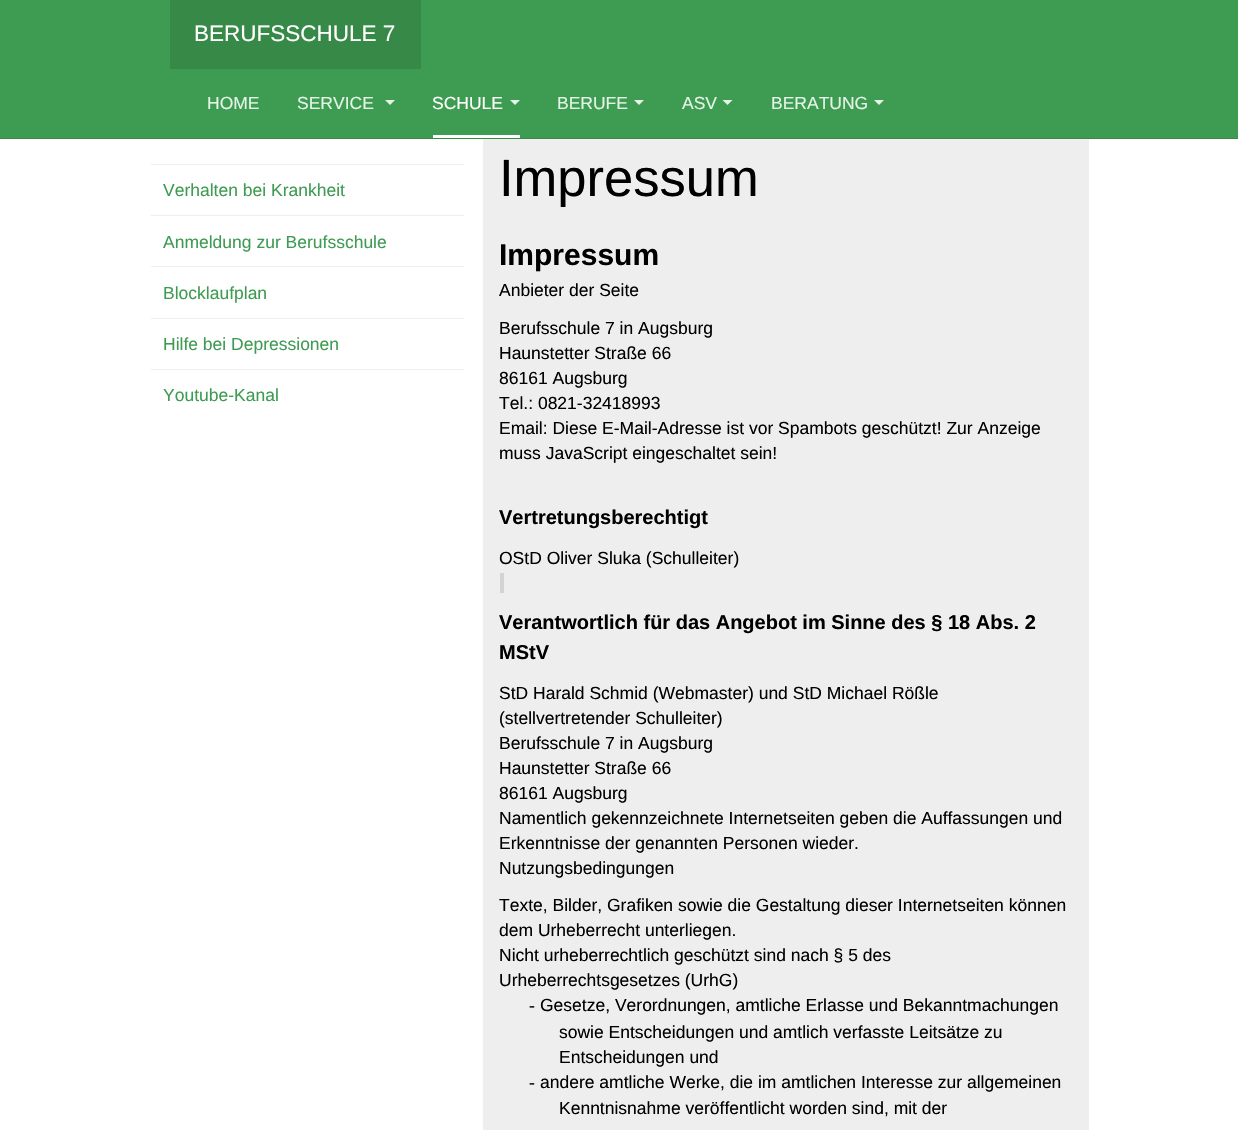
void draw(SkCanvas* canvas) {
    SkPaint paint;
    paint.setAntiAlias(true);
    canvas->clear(0xFFFFFFFF);
    paint.setColor(0xFF3E9B52);
    canvas->drawRect(SkRect::MakeXYWH(0, 0, 1238, 138), paint);
    paint.setColor(0xFF378948);
    canvas->drawRect(SkRect::MakeXYWH(0, 138, 1238, 1), paint);
    canvas->drawRect(SkRect::MakeXYWH(170, 0, 251, 69), paint);
    SkFont font1(fontMgr->matchFamilyStyle("Liberation Sans", SkFontStyle::Normal()), 22.5f);
    font1.setSubpixel(true);
    paint.setColor(0xFFFFFFFF);
    canvas->drawString("BERUFSSCHULE 7", 194, 41, font1, paint);
    SkFont font2(fontMgr->matchFamilyStyle("Liberation Sans", SkFontStyle::Normal()), 17.5f);
    font2.setSubpixel(true);
    paint.setColor(0xFFE4F4E7);
    canvas->drawString("HOME", 207, 109, font2, paint);
    canvas->drawString("SERVICE", 297, 109, font2, paint);
    canvas->drawPath(SkPathBuilder().moveTo(385, 100).lineTo(395, 100).lineTo(390, 105).close().detach(), paint);
    paint.setColor(0xFFFFFFFF);
    canvas->drawRect(SkRect::MakeXYWH(433, 135, 87, 3), paint);
    canvas->drawString("SCHULE", 432, 109, font2, paint);
    paint.setColor(0xFFE4F4E7);
    canvas->drawPath(SkPathBuilder().moveTo(510, 100).lineTo(520, 100).lineTo(515, 105).close().detach(), paint);
    canvas->drawString("BERUFE", 557, 109, font2, paint);
    canvas->drawPath(SkPathBuilder().moveTo(634, 100).lineTo(644, 100).lineTo(639, 105).close().detach(), paint);
    canvas->drawString("ASV", 682, 109, font2, paint);
    canvas->drawPath(SkPathBuilder().moveTo(722.5f, 100).lineTo(732.5f, 100).lineTo(727.5f, 105).close().detach(), paint);
    canvas->drawString("BERATUNG", 771, 109, font2, paint);
    canvas->drawPath(SkPathBuilder().moveTo(874, 100).lineTo(884, 100).lineTo(879, 105).close().detach(), paint);
    paint.setColor(0xFFEEEEEE);
    canvas->drawRect(SkRect::MakeXYWH(151, 164, 313, 1), paint);
    paint.setColor(0xFF3E9B52);
    canvas->drawString("Verhalten bei Krankheit", 163, 196, font2, paint);
    paint.setColor(0xFFEEEEEE);
    canvas->drawRect(SkRect::MakeXYWH(151, 215, 313, 1), paint);
    paint.setColor(0xFF3E9B52);
    canvas->drawString("Anmeldung zur Berufsschule", 163, 248, font2, paint);
    paint.setColor(0xFFEEEEEE);
    canvas->drawRect(SkRect::MakeXYWH(151, 266, 313, 1), paint);
    paint.setColor(0xFF3E9B52);
    canvas->drawString("Blocklaufplan", 163, 299, font2, paint);
    paint.setColor(0xFFEEEEEE);
    canvas->drawRect(SkRect::MakeXYWH(151, 318, 313, 1), paint);
    paint.setColor(0xFF3E9B52);
    canvas->drawString("Hilfe bei Depressionen", 163, 350, font2, paint);
    paint.setColor(0xFFEEEEEE);
    canvas->drawRect(SkRect::MakeXYWH(151, 369, 313, 1), paint);
    paint.setColor(0xFF3E9B52);
    canvas->drawString("Youtube-Kanal", 163, 401, font2, paint);
    paint.setColor(0xFFEEEEEE);
    canvas->drawRect(SkRect::MakeXYWH(483, 139, 606, 991), paint);
    SkFont font3(fontMgr->matchFamilyStyle("Liberation Sans", SkFontStyle::Normal()), 52.5f);
    font3.setSubpixel(true);
    paint.setColor(0xFF000000);
    canvas->drawString("Impressum", 499, 196, font3, paint);
    SkFont font4(fontMgr->matchFamilyStyle("Liberation Sans", SkFontStyle::Bold()), 30);
    font4.setSubpixel(true);
    canvas->drawString("Impressum", 499, 265, font4, paint);
    canvas->drawString("Anbieter der Seite", 499, 296, font2, paint);
    canvas->drawString("Berufsschule 7 in Augsburg", 499, 334, font2, paint);
    canvas->drawString("Haunstetter Straße 66", 499, 359, font2, paint);
    canvas->drawString("86161 Augsburg", 499, 384, font2, paint);
    canvas->drawString("Tel.: 0821-32418993", 499, 409, font2, paint);
    canvas->drawString("Email: Diese E-Mail-Adresse ist vor Spambots geschützt! Zur Anzeige", 499, 434, font2, paint);
    canvas->drawString("muss JavaScript eingeschaltet sein!", 499, 459, font2, paint);
    SkFont font5(fontMgr->matchFamilyStyle("Liberation Sans", SkFontStyle::Bold()), 20);
    font5.setSubpixel(true);
    canvas->drawString("Vertretungsberechtigt", 499, 524, font5, paint);
    canvas->drawString("OStD Oliver Sluka (Schulleiter)", 499, 564, font2, paint);
    paint.setColor(0xFFD3D3D3);
    canvas->drawRect(SkRect::MakeXYWH(500, 573, 4, 20), paint);
    paint.setColor(0xFF000000);
    canvas->drawString("Verantwortlich für das Angebot im Sinne des § 18 Abs. 2", 499, 629, font5, paint);
    canvas->drawString("MStV", 499, 659, font5, paint);
    canvas->drawString("StD Harald Schmid (Webmaster) und StD Michael Rößle", 499, 699, font2, paint);
    canvas->drawString("(stellvertretender Schulleiter)", 499, 724, font2, paint);
    canvas->drawString("Berufsschule 7 in Augsburg", 499, 749, font2, paint);
    canvas->drawString("Haunstetter Straße 66", 499, 774, font2, paint);
    canvas->drawString("86161 Augsburg", 499, 799, font2, paint);
    canvas->drawString("Namentlich gekennzeichnete Internetseiten geben die Auffassungen und", 499, 824, font2, paint);
    canvas->drawString("Erkenntnisse der genannten Personen wieder.", 499, 849, font2, paint);
    canvas->drawString("Nutzungsbedingungen", 499, 874, font2, paint);
    canvas->drawString("Texte, Bilder, Grafiken sowie die Gestaltung dieser Internetseiten können", 499, 911, font2, paint);
    canvas->drawString("dem Urheberrecht unterliegen.", 499, 936, font2, paint);
    canvas->drawString("Nicht urheberrechtlich geschützt sind nach § 5 des", 499, 961, font2, paint);
    canvas->drawString("Urheberrechtsgesetzes (UrhG)", 499, 986, font2, paint);
    SkFont font6(fontMgr->matchFamilyStyle("Liberation Serif", SkFontStyle::Normal()), 17.5f);
    font6.setSubpixel(true);
    canvas->drawString("-", 529, 1011, font6, paint);
    canvas->drawString("Gesetze, Verordnungen, amtliche Erlasse und Bekanntmachungen", 540, 1011, font2, paint);
    canvas->drawString("sowie Entscheidungen und amtlich verfasste Leitsätze zu", 559, 1038, font2, paint);
    canvas->drawString("Entscheidungen und", 559, 1063, font2, paint);
    canvas->drawString("-", 529, 1088, font6, paint);
    canvas->drawString("andere amtliche Werke, die im amtlichen Interesse zur allgemeinen", 540, 1088, font2, paint);
    canvas->drawString("Kenntnisnahme veröffentlicht worden sind, mit der", 559, 1114, font2, paint);
}
